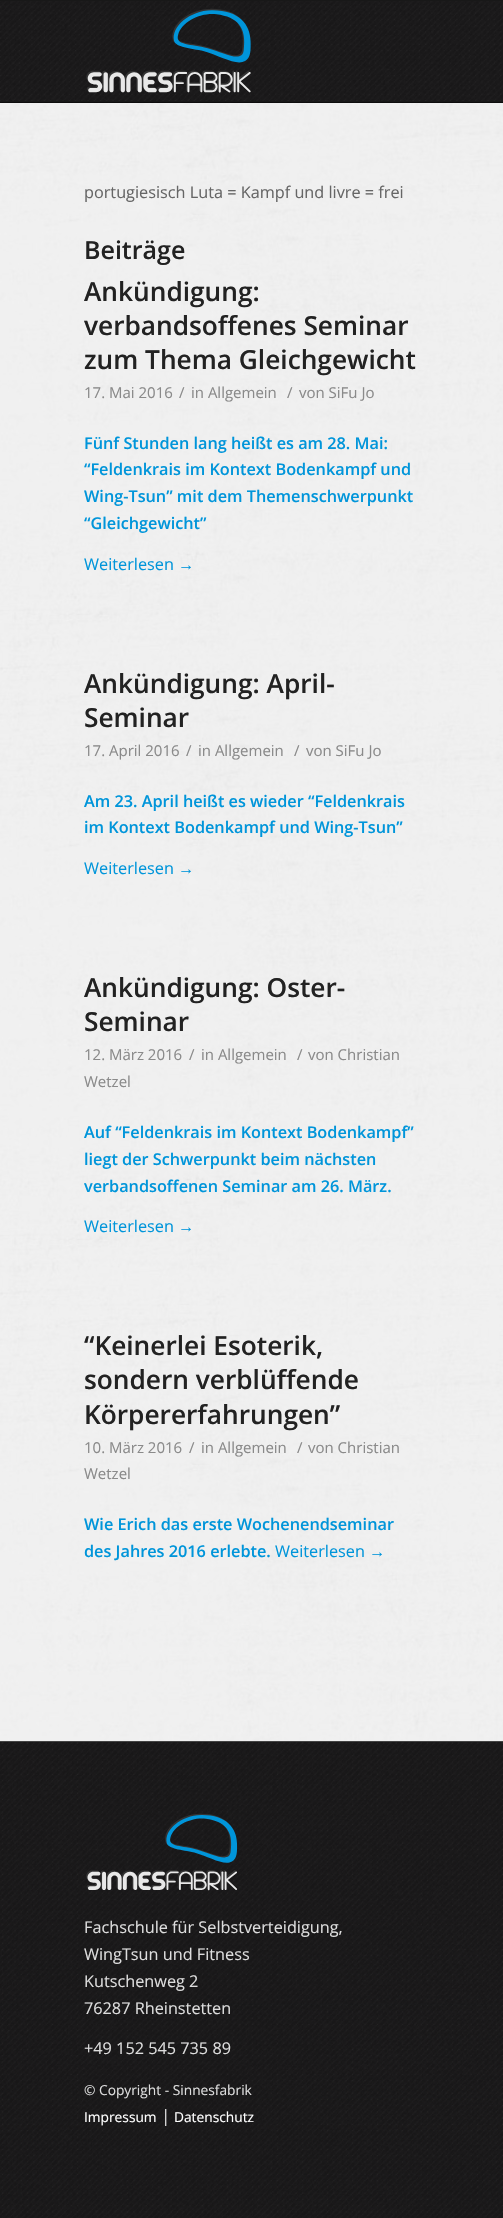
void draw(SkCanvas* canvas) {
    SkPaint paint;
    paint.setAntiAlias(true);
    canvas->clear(0xFFFFFFFF);
    paint.setColor(0xFF181818);
    canvas->drawRect(SkRect::MakeXYWH(0, 0, 503, 1), paint);
    paint.setColor(0xFF000000);
    canvas->drawRect(SkRect::MakeXYWH(0, 102, 503, 1), paint);
    canvas->drawImageRect(SkImages::DeferredFromEncodedData(SkData::MakeFromFileName("img2.png")), SkRect::MakeXYWH(0, 1, 503, 102), SkSamplingOptions());
    paint.setColor(0xFF181818);
    canvas->drawRect(SkRect::MakeXYWH(0, 101, 503, 1), paint);
    canvas->drawImageRect(SkImages::DeferredFromEncodedData(SkData::MakeFromFileName("img1.png")), SkRect::MakeXYWH(86, 8, 165, 85), SkSamplingOptions());
    canvas->drawImageRect(SkImages::DeferredFromEncodedData(SkData::MakeFromFileName("img3.png")), SkRect::MakeXYWH(0, 103, 503, 1638), SkSamplingOptions());
    SkFont font1(fontMgr->matchFamilyStyle("Open Sans", SkFontStyle::Normal()), 16.25f);
    font1.setSubpixel(true);
    paint.setColor(0xFF666666);
    canvas->drawString("portugiesisch Luta = Kampf und livre = frei", 84, 198, font1, paint);
    SkFont font2(fontMgr->matchFamilyStyle("Open Sans", SkFontStyle(600, SkFontStyle::kNormal_Width, SkFontStyle::kUpright_Slant)), 25);
    font2.setSubpixel(true);
    paint.setColor(0xFF222222);
    canvas->drawString("Beiträge", 84, 259, font2, paint);
    SkFont font3(fontMgr->matchFamilyStyle("Open Sans", SkFontStyle(600, SkFontStyle::kNormal_Width, SkFontStyle::kUpright_Slant)), 26.25f);
    font3.setSubpixel(true);
    canvas->drawString("Ankündigung:", 84, 301, font3, paint);
    canvas->drawString("verbandsoffenes Seminar", 84, 335, font3, paint);
    canvas->drawString("zum Thema Gleichgewicht", 84, 369, font3, paint);
    SkFont font4(fontMgr->matchFamilyStyle("Open Sans", SkFontStyle::Normal()), 15);
    font4.setSubpixel(true);
    paint.setColor(0xFF8A8A8A);
    canvas->drawString("17. Mai 2016", 84, 398, font4, paint);
    canvas->drawString("/", 179, 398, font4, paint);
    canvas->drawString("in Allgemein", 191, 398, font4, paint);
    canvas->drawString("/", 287, 398, font4, paint);
    canvas->drawString("von SiFu Jo", 299, 398, font4, paint);
    SkFont font5(fontMgr->matchFamilyStyle("Open Sans", SkFontStyle(600, SkFontStyle::kNormal_Width, SkFontStyle::kUpright_Slant)), 16.25f);
    font5.setSubpixel(true);
    paint.setColor(0xFF0095DA);
    canvas->drawString("Fünf Stunden lang heißt es am 28. Mai:", 84, 449, font5, paint);
    canvas->drawString("“Feldenkrais im Kontext Bodenkampf und", 84, 475, font5, paint);
    canvas->drawString("Wing-Tsun” mit dem Themenschwerpunkt", 84, 502, font5, paint);
    canvas->drawString("“Gleichgewicht”", 84, 529, font5, paint);
    canvas->drawString("Weiterlesen", 84, 570, font1, paint);
    SkFont font6(fontMgr->matchFamilyStyle("Liberation Sans", SkFontStyle::Normal()), 16.25f);
    font6.setSubpixel(true);
    canvas->drawString("→", 178, 570, font6, paint);
    paint.setColor(0xFF222222);
    canvas->drawString("Ankündigung: April-", 84, 693, font3, paint);
    canvas->drawString("Seminar", 84, 727, font3, paint);
    paint.setColor(0xFF8A8A8A);
    canvas->drawString("17. April 2016", 84, 756, font4, paint);
    canvas->drawString("/", 186, 756, font4, paint);
    canvas->drawString("in Allgemein", 198, 756, font4, paint);
    canvas->drawString("/", 294, 756, font4, paint);
    canvas->drawString("von SiFu Jo", 306, 756, font4, paint);
    paint.setColor(0xFF0095DA);
    canvas->drawString("Am 23. April heißt es wieder “Feldenkrais", 84, 807, font5, paint);
    canvas->drawString("im Kontext Bodenkampf und Wing-Tsun”", 84, 833, font5, paint);
    canvas->drawString("Weiterlesen", 84, 874, font1, paint);
    canvas->drawString("→", 178, 874, font6, paint);
    paint.setColor(0xFF222222);
    canvas->drawString("Ankündigung: Oster-", 84, 997, font3, paint);
    canvas->drawString("Seminar", 84, 1031, font3, paint);
    paint.setColor(0xFF8A8A8A);
    canvas->drawString("12. März 2016", 84, 1060, font4, paint);
    canvas->drawString("/", 189, 1060, font4, paint);
    canvas->drawString("in Allgemein", 201, 1060, font4, paint);
    canvas->drawString("/", 297, 1060, font4, paint);
    canvas->drawString("von Christian", 308, 1060, font4, paint);
    canvas->drawString("Wetzel", 84, 1087, font4, paint);
    paint.setColor(0xFF0095DA);
    canvas->drawString("Auf “Feldenkrais im Kontext Bodenkampf”", 84, 1138, font5, paint);
    canvas->drawString("liegt der Schwerpunkt beim nächsten", 84, 1165, font5, paint);
    canvas->drawString("verbandsoffenen Seminar am 26. März.", 84, 1192, font5, paint);
    canvas->drawString("Weiterlesen", 84, 1232, font1, paint);
    canvas->drawString("→", 178, 1232, font6, paint);
    paint.setColor(0xFF222222);
    canvas->drawString("“Keinerlei Esoterik,", 84, 1355, font3, paint);
    canvas->drawString("sondern verblüffende", 84, 1389, font3, paint);
    canvas->drawString("Körpererfahrungen”", 84, 1424, font3, paint);
    paint.setColor(0xFF8A8A8A);
    canvas->drawString("10. März 2016", 84, 1453, font4, paint);
    canvas->drawString("/", 189, 1453, font4, paint);
    canvas->drawString("in Allgemein", 201, 1453, font4, paint);
    canvas->drawString("/", 297, 1453, font4, paint);
    canvas->drawString("von Christian", 308, 1453, font4, paint);
    canvas->drawString("Wetzel", 84, 1479, font4, paint);
    paint.setColor(0xFF0095DA);
    canvas->drawString("Wie Erich das erste Wochenendseminar", 84, 1530, font5, paint);
    canvas->drawString("des Jahres 2016 erlebte.", 84, 1557, font5, paint);
    canvas->drawString("Weiterlesen", 275, 1557, font1, paint);
    canvas->drawString("→", 369, 1557, font6, paint);
    canvas->drawImageRect(SkImages::DeferredFromEncodedData(SkData::MakeFromFileName("img4.png")), SkRect::MakeXYWH(0, 1742, 503, 476), SkSamplingOptions());
    paint.setColor(0xFF444444);
    canvas->drawRect(SkRect::MakeXYWH(0, 1741, 503, 1), paint);
    canvas->drawImageRect(SkImages::DeferredFromEncodedData(SkData::MakeFromFileName("img5.png")), SkRect::MakeXYWH(86, 1813, 152, 78), SkSamplingOptions());
    paint.setColor(0xFFDDDDDD);
    canvas->drawString("Fachschule für Selbstverteidigung,", 84, 1933, font1, paint);
    canvas->drawString("WingTsun und Fitness", 84, 1960, font1, paint);
    canvas->drawString("Kutschenweg 2", 84, 1987, font1, paint);
    canvas->drawString("76287 Rheinstetten", 84, 2014, font1, paint);
    canvas->drawString("+49 152 545 735 89", 84, 2054, font1, paint);
    SkFont font7(fontMgr->matchFamilyStyle("Open Sans", SkFontStyle::Normal()), 13.75f);
    font7.setSubpixel(true);
    canvas->drawString("© Copyright - Sinnesfabrik", 84, 2095, font7, paint);
    paint.setColor(0xFFFFFFFF);
    canvas->drawString("Impressum", 84, 2122, font7, paint);
    SkFont font8(fontMgr->matchFamilyStyle("Open Sans", SkFontStyle::Normal()), 17);
    font8.setSubpixel(true);
    paint.setColor(0xFFDDDDDD);
    canvas->drawString("|", 161, 2122, font8, paint);
    paint.setColor(0xFFFFFFFF);
    canvas->drawString("Datenschutz", 174, 2122, font7, paint);
}
